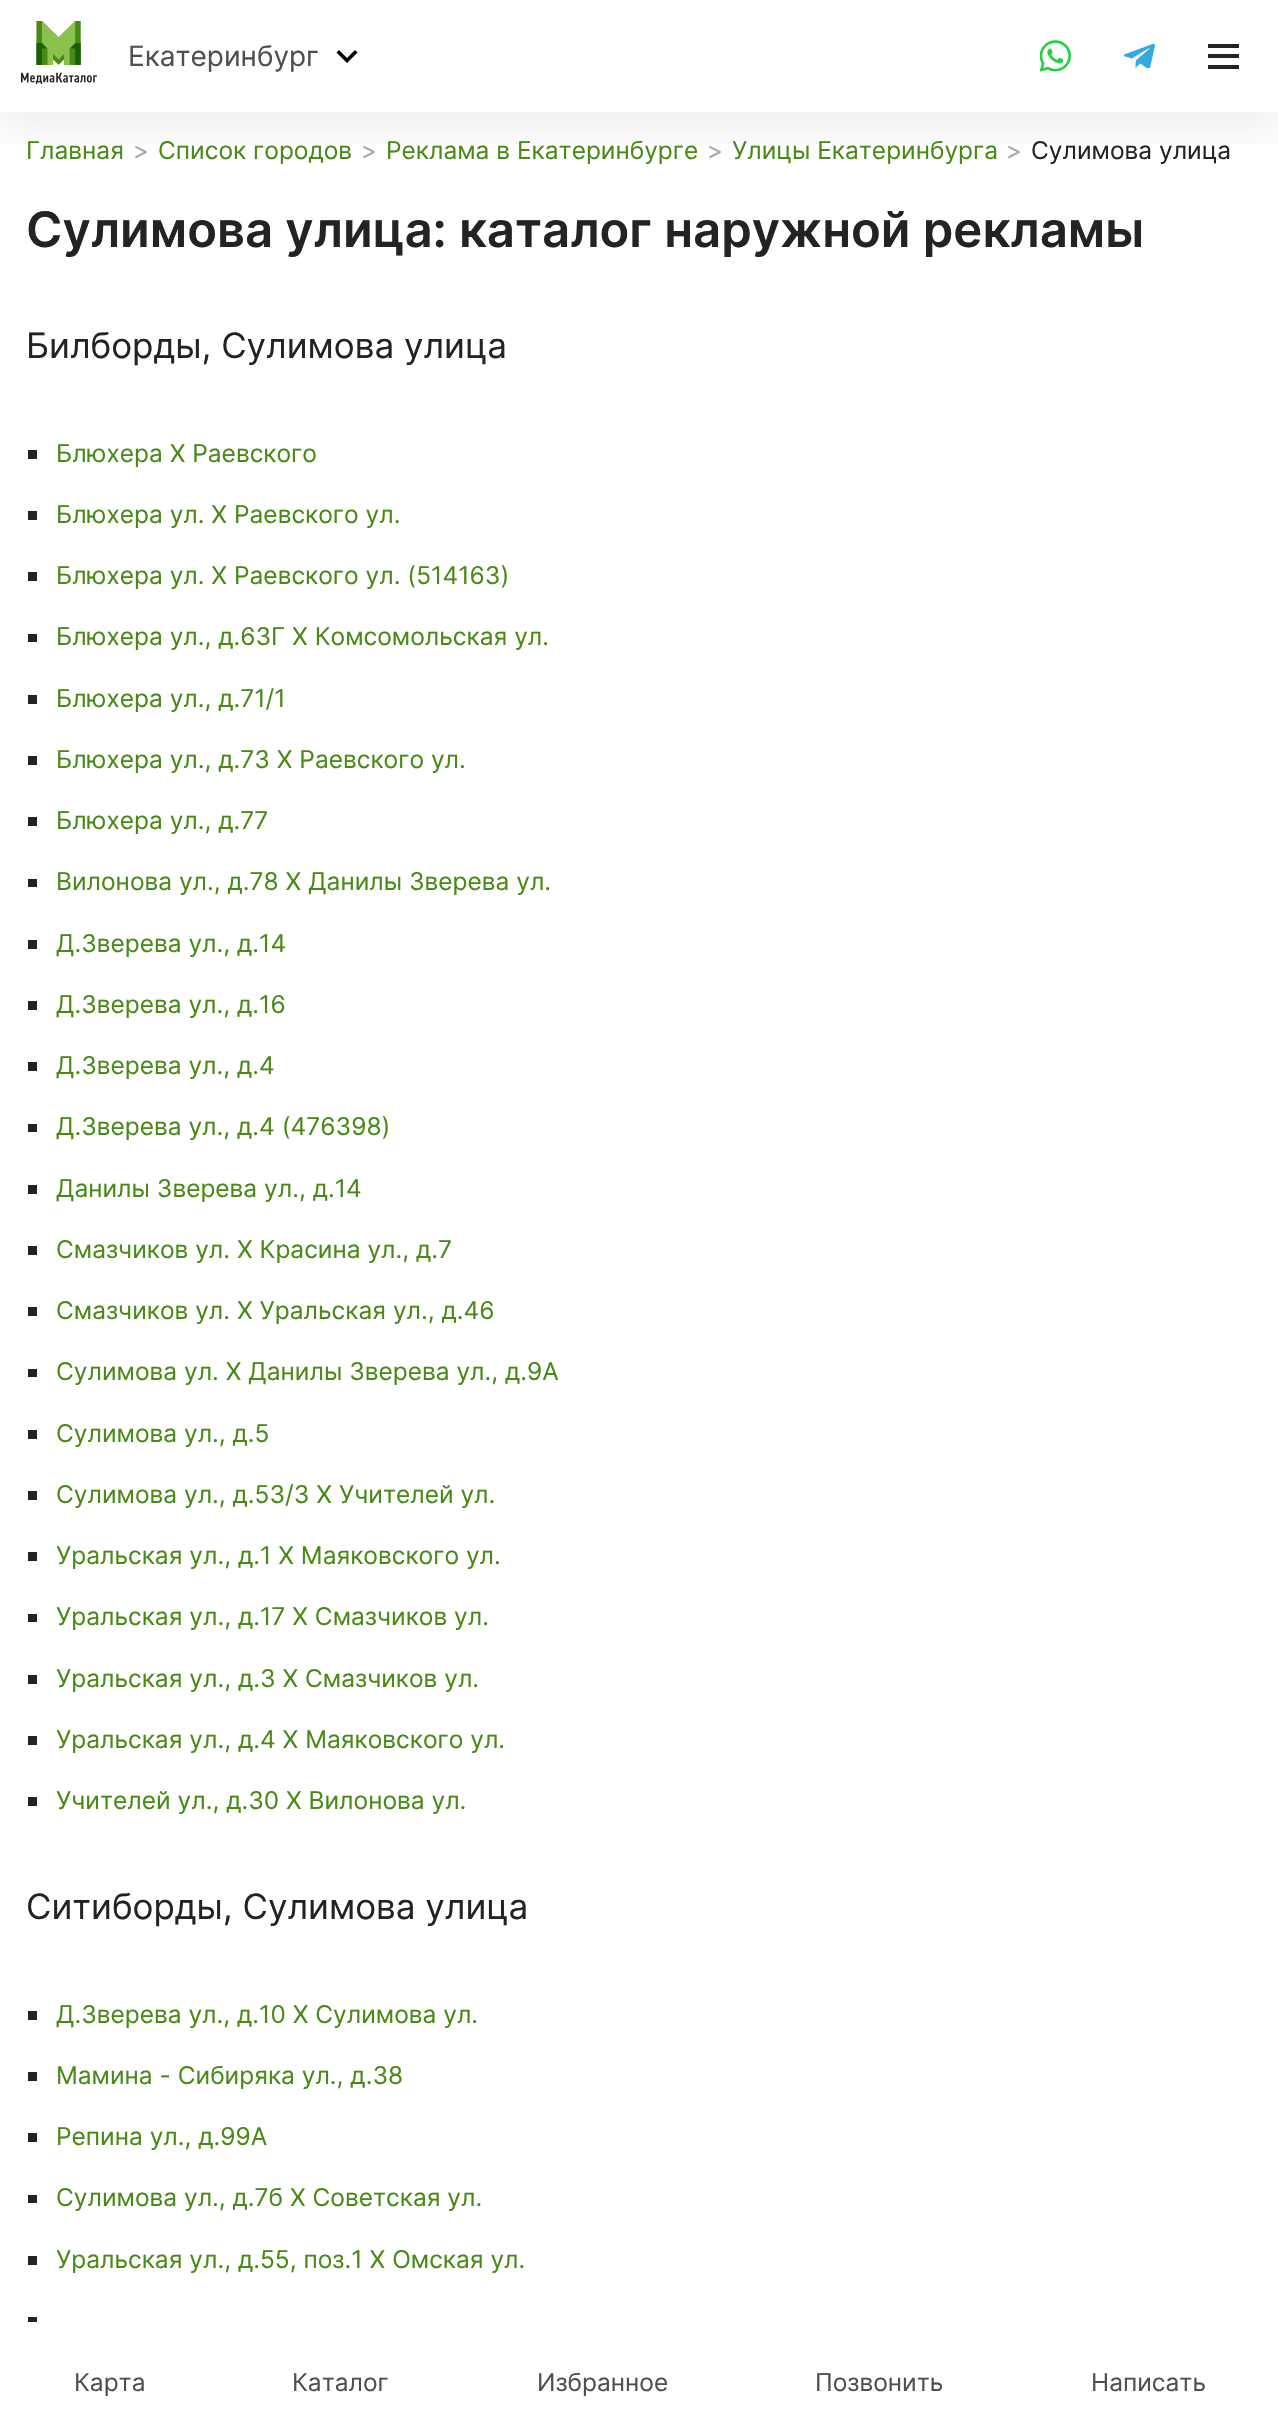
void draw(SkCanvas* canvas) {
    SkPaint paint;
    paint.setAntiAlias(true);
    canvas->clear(0xFFFFFFFF);
    canvas->save();
    canvas->clipRect(SkRect::MakeXYWH(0, 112, 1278, 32));
    paint.setColor(0x14232323);
    paint.setMaskFilter(SkMaskFilter::MakeBlur(kNormal_SkBlurStyle, 21));
    canvas->drawRect(SkRect::MakeXYWH(0, 18, 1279, 112), paint);
    paint.setMaskFilter(nullptr);
    canvas->restore();
    canvas->drawImageRect(SkImages::DeferredFromEncodedData(SkData::MakeFromFileName("img1.png")), SkRect::MakeXYWH(21, 21, 77, 63), SkSamplingOptions());
    SkFont font1(fontMgr->matchFamilyStyle("Inter", SkFontStyle::Normal()), 28);
    font1.setSubpixel(true);
    paint.setColor(0xFF4F4F4F);
    canvas->drawString("Екатеринбург", 128, 66, font1, paint);
    paint.setColor(0xFF000000);
    canvas->drawPath(SkPathBuilder().moveTo(347, 63).lineTo(357.5f, 52.5f).lineTo(355, 50).lineTo(347, 58).lineTo(339, 50).lineTo(336.5f, 52.5f).close().detach(), paint);
    canvas->drawImageRect(SkImages::DeferredFromEncodedData(SkData::MakeFromFileName("img2.png")), SkRect::MakeXYWH(1040, 40, 31, 32), SkSamplingOptions());
    canvas->drawImageRect(SkImages::DeferredFromEncodedData(SkData::MakeFromFileName("img3.png")), SkRect::MakeXYWH(1124, 44, 31, 24), SkSamplingOptions());
    paint.setColor(0xFF232323);
    canvas->drawRect(SkRect::MakeXYWH(1208, 44, 31, 4), paint);
    canvas->drawRect(SkRect::MakeXYWH(1208, 54, 31, 4), paint);
    canvas->drawRect(SkRect::MakeXYWH(1208, 65, 31, 4), paint);
    SkFont font2(fontMgr->matchFamilyStyle("Inter", SkFontStyle::Normal()), 24.5f);
    font2.setSubpixel(true);
    paint.setColor(0xFF498916);
    canvas->drawString("Главная", 26, 159, font2, paint);
    paint.setColor(0xFFA6A6A6);
    canvas->drawString(">", 133, 159, font2, paint);
    paint.setColor(0xFF498916);
    canvas->drawString("Список городов", 158, 159, font2, paint);
    paint.setColor(0xFFA6A6A6);
    canvas->drawString(">", 361, 159, font2, paint);
    paint.setColor(0xFF498916);
    canvas->drawString("Реклама в Екатеринбурге", 386, 159, font2, paint);
    paint.setColor(0xFFA6A6A6);
    canvas->drawString(">", 707, 159, font2, paint);
    paint.setColor(0xFF498916);
    canvas->drawString("Улицы Екатеринбурга", 732, 159, font2, paint);
    paint.setColor(0xFFA6A6A6);
    canvas->drawString(">", 1006, 159, font2, paint);
    paint.setColor(0xFF232323);
    canvas->drawString("Сулимова улица", 1031, 159, font2, paint);
    SkFont font3(fontMgr->matchFamilyStyle("Inter", SkFontStyle(600, SkFontStyle::kNormal_Width, SkFontStyle::kUpright_Slant)), 49);
    font3.setSubpixel(true);
    canvas->drawString("Сулимова улица: каталог наружной рекламы", 26, 247, font3, paint);
    SkFont font4(fontMgr->matchFamilyStyle("Inter", SkFontStyle::Normal()), 35);
    font4.setSubpixel(true);
    canvas->drawString("Билборды, Сулимова улица", 26, 358, font4, paint);
    canvas->drawRect(SkRect::MakeXYWH(28, 450, 9, 9), paint);
    paint.setColor(0xFF498916);
    canvas->drawString("Блюхера Х Раевского", 56, 462, font2, paint);
    paint.setColor(0xFF232323);
    canvas->drawRect(SkRect::MakeXYWH(28, 511, 9, 9), paint);
    paint.setColor(0xFF498916);
    canvas->drawString("Блюхера ул. Х Раевского ул.", 56, 523, font2, paint);
    paint.setColor(0xFF232323);
    canvas->drawRect(SkRect::MakeXYWH(28, 572, 9, 9), paint);
    paint.setColor(0xFF498916);
    canvas->drawString("Блюхера ул. Х Раевского ул. (514163)", 56, 584, font2, paint);
    paint.setColor(0xFF232323);
    canvas->drawRect(SkRect::MakeXYWH(28, 634, 9, 8), paint);
    paint.setColor(0xFF498916);
    canvas->drawString("Блюхера ул., д.63Г X Комсомольская ул.", 56, 645, font2, paint);
    paint.setColor(0xFF232323);
    canvas->drawRect(SkRect::MakeXYWH(28, 695, 9, 9), paint);
    paint.setColor(0xFF498916);
    canvas->drawString("Блюхера ул., д.71/1", 56, 707, font2, paint);
    paint.setColor(0xFF232323);
    canvas->drawRect(SkRect::MakeXYWH(28, 756, 9, 9), paint);
    paint.setColor(0xFF498916);
    canvas->drawString("Блюхера ул., д.73 X Раевского ул.", 56, 768, font2, paint);
    paint.setColor(0xFF232323);
    canvas->drawRect(SkRect::MakeXYWH(28, 817, 9, 9), paint);
    paint.setColor(0xFF498916);
    canvas->drawString("Блюхера ул., д.77", 56, 829, font2, paint);
    paint.setColor(0xFF232323);
    canvas->drawRect(SkRect::MakeXYWH(28, 879, 9, 8), paint);
    paint.setColor(0xFF498916);
    canvas->drawString("Вилонова ул., д.78 Х Данилы Зверева ул.", 56, 890, font2, paint);
    paint.setColor(0xFF232323);
    canvas->drawRect(SkRect::MakeXYWH(28, 940, 9, 9), paint);
    paint.setColor(0xFF498916);
    canvas->drawString("Д.Зверева ул., д.14", 56, 952, font2, paint);
    paint.setColor(0xFF232323);
    canvas->drawRect(SkRect::MakeXYWH(28, 1001, 9, 9), paint);
    paint.setColor(0xFF498916);
    canvas->drawString("Д.Зверева ул., д.16", 56, 1013, font2, paint);
    paint.setColor(0xFF232323);
    canvas->drawRect(SkRect::MakeXYWH(28, 1062, 9, 9), paint);
    paint.setColor(0xFF498916);
    canvas->drawString("Д.Зверева ул., д.4", 56, 1074, font2, paint);
    paint.setColor(0xFF232323);
    canvas->drawRect(SkRect::MakeXYWH(28, 1124, 9, 8), paint);
    paint.setColor(0xFF498916);
    canvas->drawString("Д.Зверева ул., д.4 (476398)", 56, 1135, font2, paint);
    paint.setColor(0xFF232323);
    canvas->drawRect(SkRect::MakeXYWH(28, 1185, 9, 9), paint);
    paint.setColor(0xFF498916);
    canvas->drawString("Данилы Зверева ул., д.14", 56, 1197, font2, paint);
    paint.setColor(0xFF232323);
    canvas->drawRect(SkRect::MakeXYWH(28, 1246, 9, 9), paint);
    paint.setColor(0xFF498916);
    canvas->drawString("Смазчиков ул. Х Красина ул., д.7", 56, 1258, font2, paint);
    paint.setColor(0xFF232323);
    canvas->drawRect(SkRect::MakeXYWH(28, 1307, 9, 9), paint);
    paint.setColor(0xFF498916);
    canvas->drawString("Смазчиков ул. Х Уральская ул., д.46", 56, 1319, font2, paint);
    paint.setColor(0xFF232323);
    canvas->drawRect(SkRect::MakeXYWH(28, 1369, 9, 8), paint);
    paint.setColor(0xFF498916);
    canvas->drawString("Сулимова ул. Х Данилы Зверева ул., д.9А", 56, 1380, font2, paint);
    paint.setColor(0xFF232323);
    canvas->drawRect(SkRect::MakeXYWH(28, 1430, 9, 9), paint);
    paint.setColor(0xFF498916);
    canvas->drawString("Сулимова ул., д.5", 56, 1442, font2, paint);
    paint.setColor(0xFF232323);
    canvas->drawRect(SkRect::MakeXYWH(28, 1491, 9, 9), paint);
    paint.setColor(0xFF498916);
    canvas->drawString("Сулимова ул., д.53/3 X Учителей ул.", 56, 1503, font2, paint);
    paint.setColor(0xFF232323);
    canvas->drawRect(SkRect::MakeXYWH(28, 1552, 9, 9), paint);
    paint.setColor(0xFF498916);
    canvas->drawString("Уральская ул., д.1 X Маяковского ул.", 56, 1564, font2, paint);
    paint.setColor(0xFF232323);
    canvas->drawRect(SkRect::MakeXYWH(28, 1614, 9, 8), paint);
    paint.setColor(0xFF498916);
    canvas->drawString("Уральская ул., д.17 X Смазчиков ул.", 56, 1625, font2, paint);
    paint.setColor(0xFF232323);
    canvas->drawRect(SkRect::MakeXYWH(28, 1675, 9, 9), paint);
    paint.setColor(0xFF498916);
    canvas->drawString("Уральская ул., д.3 Х Смазчиков ул.", 56, 1687, font2, paint);
    paint.setColor(0xFF232323);
    canvas->drawRect(SkRect::MakeXYWH(28, 1736, 9, 9), paint);
    paint.setColor(0xFF498916);
    canvas->drawString("Уральская ул., д.4 Х Маяковского ул.", 56, 1748, font2, paint);
    paint.setColor(0xFF232323);
    canvas->drawRect(SkRect::MakeXYWH(28, 1797, 9, 9), paint);
    paint.setColor(0xFF498916);
    canvas->drawString("Учителей ул., д.30 X Вилонова ул.", 56, 1809, font2, paint);
    paint.setColor(0xFF232323);
    canvas->drawString("Ситиборды, Сулимова улица", 26, 1919, font4, paint);
    canvas->drawRect(SkRect::MakeXYWH(28, 2011, 9, 9), paint);
    paint.setColor(0xFF498916);
    canvas->drawString("Д.Зверева ул., д.10 Х Сулимова ул.", 56, 2023, font2, paint);
    paint.setColor(0xFF232323);
    canvas->drawRect(SkRect::MakeXYWH(28, 2072, 9, 9), paint);
    paint.setColor(0xFF498916);
    canvas->drawString("Мамина - Сибиряка ул., д.38", 56, 2084, font2, paint);
    paint.setColor(0xFF232323);
    canvas->drawRect(SkRect::MakeXYWH(28, 2133, 9, 9), paint);
    paint.setColor(0xFF498916);
    canvas->drawString("Репина ул., д.99А", 56, 2145, font2, paint);
    paint.setColor(0xFF232323);
    canvas->drawRect(SkRect::MakeXYWH(28, 2195, 9, 8), paint);
    paint.setColor(0xFF498916);
    canvas->drawString("Сулимова ул., д.7б Х Советская ул.", 56, 2206, font2, paint);
    paint.setColor(0xFF232323);
    canvas->drawRect(SkRect::MakeXYWH(28, 2256, 9, 9), paint);
    paint.setColor(0xFF498916);
    canvas->drawString("Уральская ул., д.55, поз.1 X Омская ул.", 56, 2268, font2, paint);
    paint.setColor(0xFF232323);
    canvas->drawRect(SkRect::MakeXYWH(28, 2317, 9, 5), paint);
    paint.setColor(0xFF4F4F4F);
    canvas->drawString("Карта", 74, 2391, font2, paint);
    canvas->drawString("Каталог", 292, 2391, font2, paint);
    canvas->drawString("Избранное", 537, 2391, font2, paint);
    canvas->drawString("Позвонить", 815, 2391, font2, paint);
    canvas->drawString("Написать", 1091, 2391, font2, paint);
}
